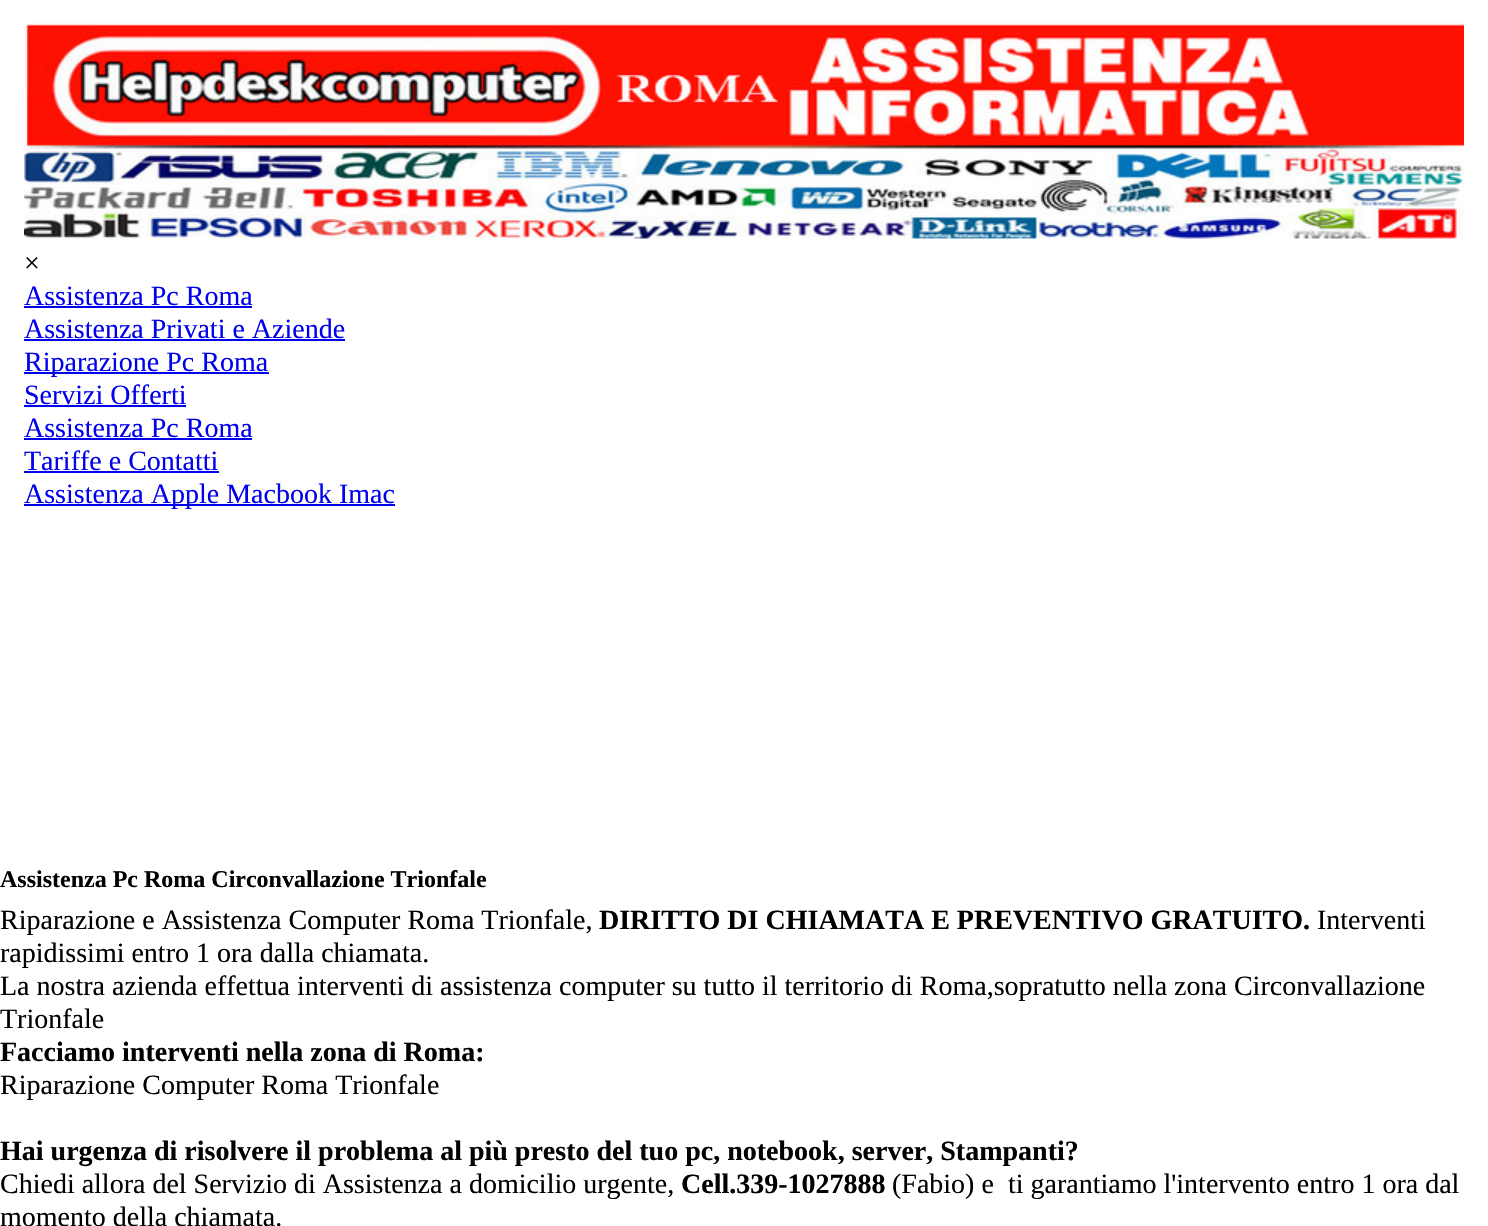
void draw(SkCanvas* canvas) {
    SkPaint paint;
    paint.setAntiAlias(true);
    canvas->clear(0xFFFFFFFF);
    canvas->drawImageRect(SkImages::DeferredFromEncodedData(SkData::MakeFromFileName("img1.png")), SkRect::MakeXYWH(24, 23, 1440, 216), SkSamplingOptions());
    SkFont font1(fontMgr->matchFamilyStyle("Liberation Serif", SkFontStyle::Normal()), 28);
    font1.setSubpixel(true);
    paint.setColor(0xFF000000);
    canvas->drawString("×", 24, 272, font1, paint);
    paint.setColor(0xFF0000EE);
    canvas->drawString("Assistenza Pc Roma", 24, 305, font1, paint);
    canvas->drawRect(SkRect::MakeXYWH(24, 306, 228, 2), paint);
    canvas->drawString("Assistenza Privati e Aziende", 24, 338, font1, paint);
    canvas->drawRect(SkRect::MakeXYWH(24, 339, 321, 2), paint);
    canvas->drawRect(SkRect::MakeXYWH(24, 372, 245, 2), paint);
    canvas->drawString("Riparazione Pc Roma", 24, 371, font1, paint);
    canvas->drawString("Servizi Offerti", 24, 404, font1, paint);
    canvas->drawRect(SkRect::MakeXYWH(24, 405, 162, 2), paint);
    canvas->drawString("Assistenza Pc Roma", 24, 437, font1, paint);
    canvas->drawRect(SkRect::MakeXYWH(24, 438, 228, 2), paint);
    canvas->drawString("Tariffe e Contatti", 24, 470, font1, paint);
    canvas->drawRect(SkRect::MakeXYWH(24, 471, 195, 2), paint);
    canvas->drawRect(SkRect::MakeXYWH(24, 504, 371, 2), paint);
    canvas->drawString("Assistenza Apple Macbook Imac", 24, 503, font1, paint);
    SkFont font2(fontMgr->matchFamilyStyle("Liberation Serif", SkFontStyle::Bold()), 24);
    font2.setSubpixel(true);
    paint.setColor(0xFF000000);
    canvas->drawString("Assistenza Pc Roma Circonvallazione Trionfale", 0, 887, font2, paint);
    canvas->drawString("Riparazione e Assistenza Computer Roma Trionfale,", 0, 929, font1, paint);
    SkFont font3(fontMgr->matchFamilyStyle("Liberation Serif", SkFontStyle::Bold()), 28);
    font3.setSubpixel(true);
    canvas->drawString("DIRITTO DI CHIAMATA E PREVENTIVO GRATUITO.", 599, 929, font3, paint);
    canvas->drawString("Interventi", 1317, 929, font1, paint);
    canvas->drawString("rapidissimi entro 1 ora dalla chiamata.", 0, 962, font1, paint);
    canvas->drawString("La nostra azienda effettua interventi di assistenza computer su tutto il territorio di Roma,sopratutto nella zona Circonvallazione", 0, 995, font1, paint);
    canvas->drawString("Trionfale", 0, 1028, font1, paint);
    canvas->drawString("Facciamo interventi nella zona di Roma:", 0, 1061, font3, paint);
    canvas->drawString("Riparazione Computer Roma Trionfale", 0, 1094, font1, paint);
    canvas->drawString("Hai urgenza di risolvere il problema al più presto del tuo pc, notebook, server, Stampanti?", 0, 1160, font3, paint);
    canvas->drawString("Chiedi allora del Servizio di Assistenza a domicilio urgente,", 0, 1193, font1, paint);
    canvas->drawString("Cell.339-1027888", 681, 1193, font3, paint);
    canvas->drawString("(Fabio) e", 892, 1193, font1, paint);
    canvas->drawString("ti garantiamo l'intervento entro 1 ora dal", 1008, 1193, font1, paint);
    canvas->drawString("momento della chiamata.", 0, 1226, font1, paint);
}
